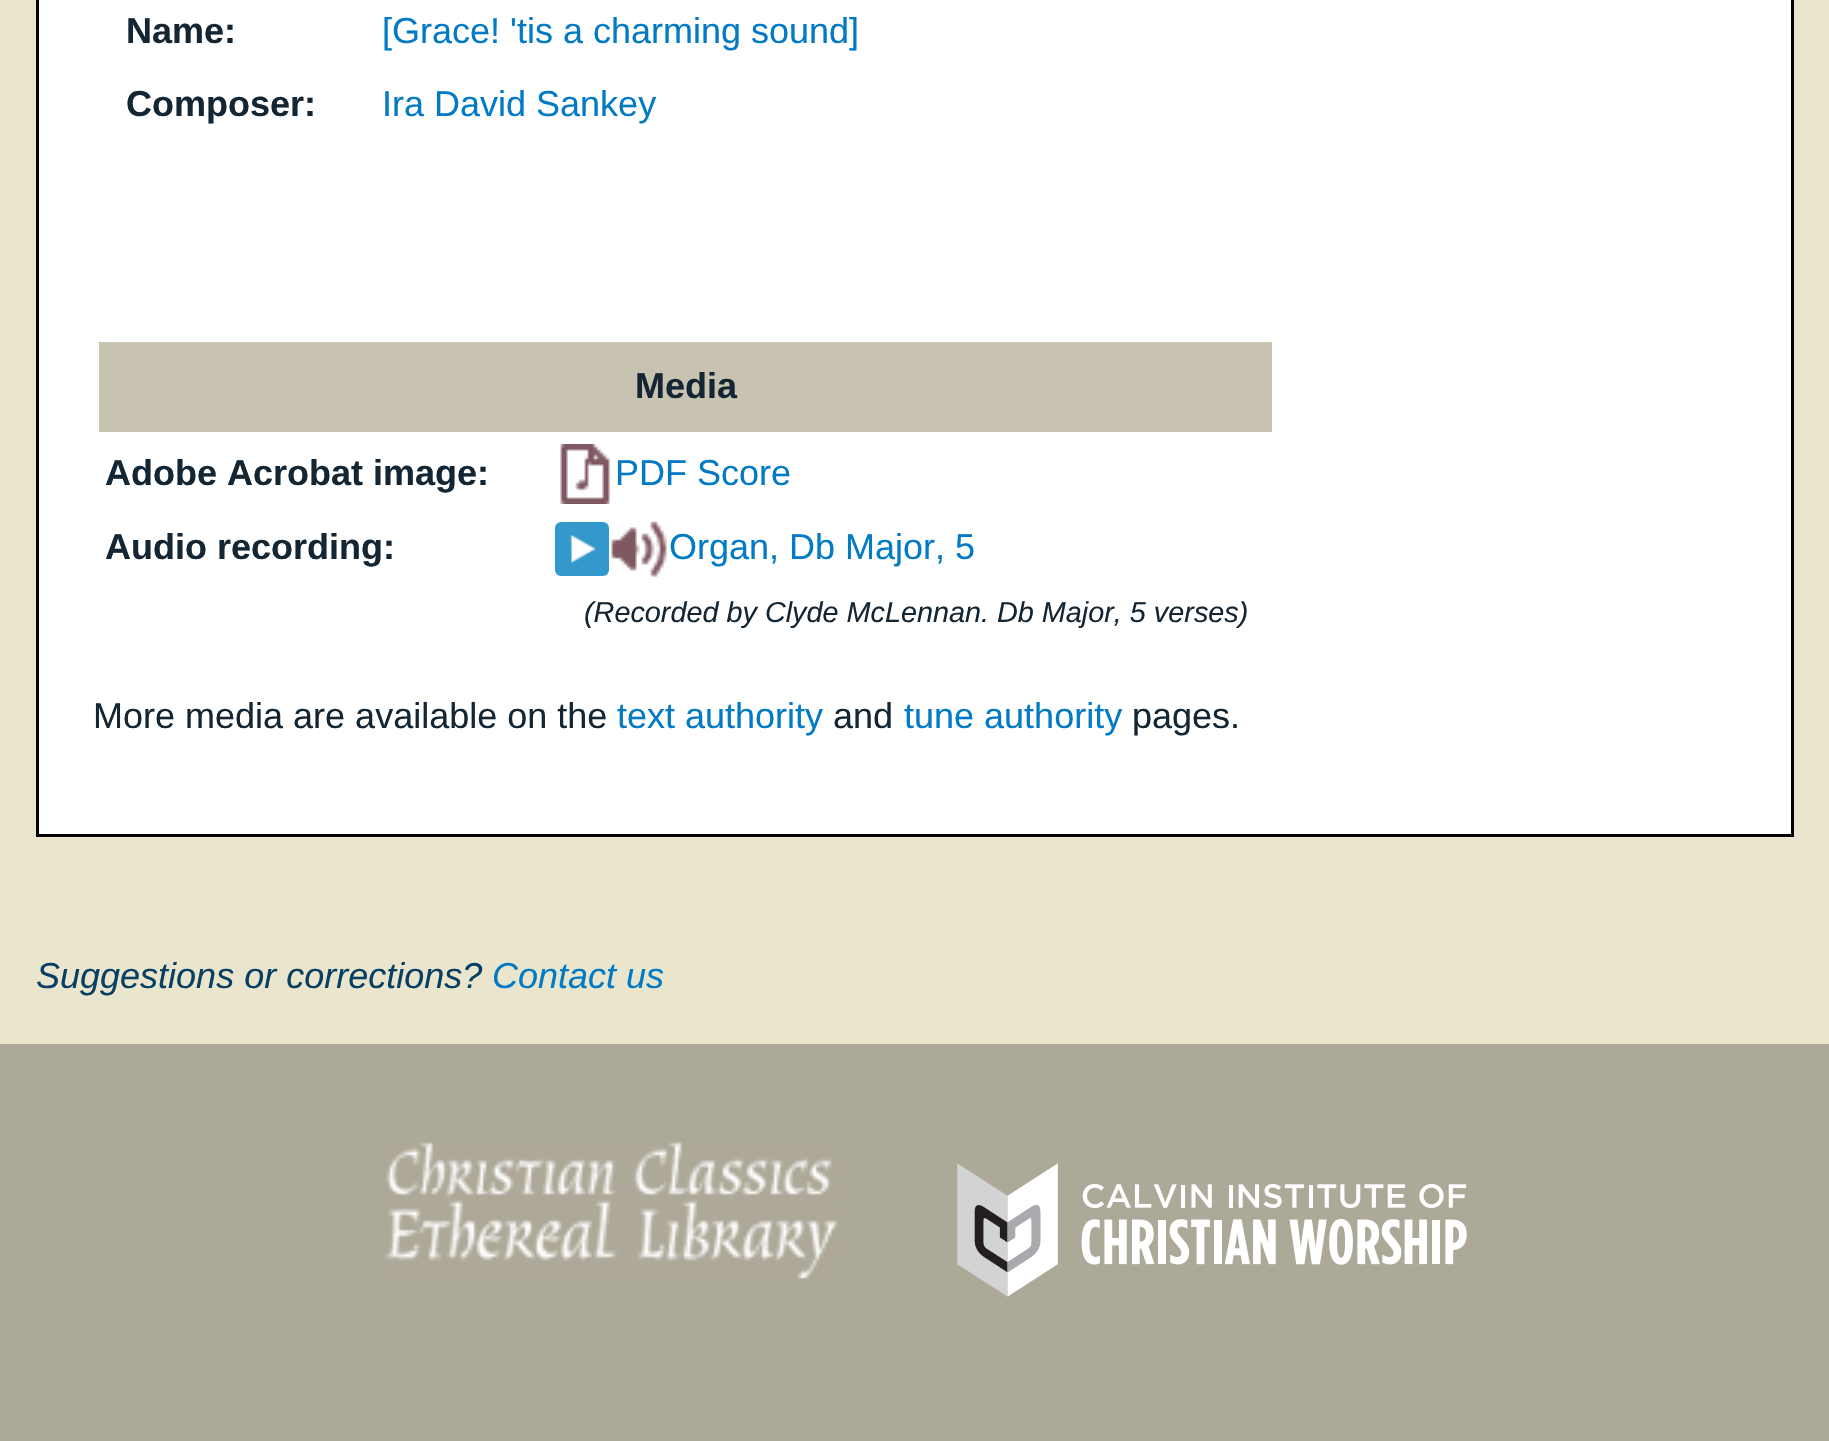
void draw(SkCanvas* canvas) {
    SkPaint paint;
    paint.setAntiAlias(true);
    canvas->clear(0xFFE9E6CD);
    paint.setColor(0xFFFFFFFF);
    canvas->drawRect(SkRect::MakeXYWH(37.5f, -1.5f, 1755, 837), paint);
    paint.setStyle(SkPaint::kStroke_Style);
    paint.setStrokeWidth(3);
    paint.setColor(0xFF000000);
    canvas->drawRect(SkRect::MakeXYWH(37.5f, -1.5f, 1755, 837), paint);
    SkFont font1(fontMgr->matchFamilyStyle("Liberation Sans", SkFontStyle::Bold()), 36);
    font1.setSubpixel(true);
    paint.setStyle(SkPaint::kFill_Style);
    paint.setColor(0xFF142633);
    canvas->drawString("Name:", 126, 43, font1, paint);
    SkFont font2(fontMgr->matchFamilyStyle("Liberation Sans", SkFontStyle::Normal()), 36);
    font2.setSubpixel(true);
    paint.setColor(0xFF027AC6);
    canvas->drawString("[Grace! 'tis a charming sound]", 382, 43, font2, paint);
    paint.setColor(0xFF142633);
    canvas->drawString("Composer:", 126, 116, font1, paint);
    paint.setColor(0xFF027AC6);
    canvas->drawString("Ira David Sankey", 382, 116, font2, paint);
    paint.setColor(0xFFC8C3B0);
    canvas->drawRect(SkRect::MakeXYWH(99, 345, 1173, 84), paint);
    paint.setColor(0xFFC9C4B1);
    canvas->drawRect(SkRect::MakeXYWH(99, 342, 1173, 3), paint);
    canvas->drawRect(SkRect::MakeXYWH(99, 429, 1173, 3), paint);
    paint.setColor(0xFF142633);
    canvas->drawString("Media", 635, 398, font1, paint);
    canvas->drawString("Adobe Acrobat image:", 105, 485, font1, paint);
    canvas->drawImageRect(SkImages::DeferredFromEncodedData(SkData::MakeFromFileName("img1.png")), SkRect::MakeXYWH(560, 444, 50, 60), SkSamplingOptions());
    paint.setColor(0xFF027AC6);
    canvas->drawString("PDF Score", 615, 485, font2, paint);
    paint.setColor(0xFF142633);
    canvas->drawString("Audio recording:", 105, 559, font1, paint);
    paint.setColor(0xFF3399CC);
    canvas->drawRoundRect(SkRect::MakeXYWH(555, 522, 54, 54), 6, 6, paint);
    canvas->drawImageRect(SkImages::DeferredFromEncodedData(SkData::MakeFromFileName("img2.png")), SkRect::MakeXYWH(570, 535, 26, 28), SkSamplingOptions());
    canvas->drawImageRect(SkImages::DeferredFromEncodedData(SkData::MakeFromFileName("img3.png")), SkRect::MakeXYWH(611, 521, 56, 56), SkSamplingOptions());
    paint.setColor(0xFF027AC6);
    canvas->drawString("Organ, Db Major, 5", 669, 559, font2, paint);
    SkFont font3(fontMgr->matchFamilyStyle("Liberation Sans", SkFontStyle::Italic()), 28.8f);
    font3.setSubpixel(true);
    paint.setColor(0xFF142633);
    canvas->drawString("(Recorded by Clyde McLennan. Db Major, 5 verses)", 584, 622, font3, paint);
    canvas->drawString("More media are available on the", 93, 728, font2, paint);
    paint.setColor(0xFF027AC6);
    canvas->drawString("text authority", 617, 728, font2, paint);
    paint.setColor(0xFF142633);
    canvas->drawString("and", 833, 728, font2, paint);
    paint.setColor(0xFF027AC6);
    canvas->drawString("tune authority", 904, 728, font2, paint);
    paint.setColor(0xFF142633);
    canvas->drawString("pages.", 1132, 728, font2, paint);
    SkFont font4(fontMgr->matchFamilyStyle("Liberation Sans", SkFontStyle::Italic()), 36);
    font4.setSubpixel(true);
    paint.setColor(0xFF0A3F64);
    canvas->drawString("Suggestions or corrections?", 36, 988, font4, paint);
    paint.setColor(0xFF027AC6);
    canvas->drawString("Contact us", 492, 988, font4, paint);
    paint.setColor(0xFFADA999);
    canvas->drawRect(SkRect::MakeXYWH(0, 1044, 1829, 397), paint);
    canvas->drawImageRect(SkImages::DeferredFromEncodedData(SkData::MakeFromFileName("img4.png")), SkRect::MakeXYWH(385, 1142, 453, 137), SkSamplingOptions());
    canvas->drawImageRect(SkImages::DeferredFromEncodedData(SkData::MakeFromFileName("img5.png")), SkRect::MakeXYWH(957, 1163, 510, 134), SkSamplingOptions());
}
